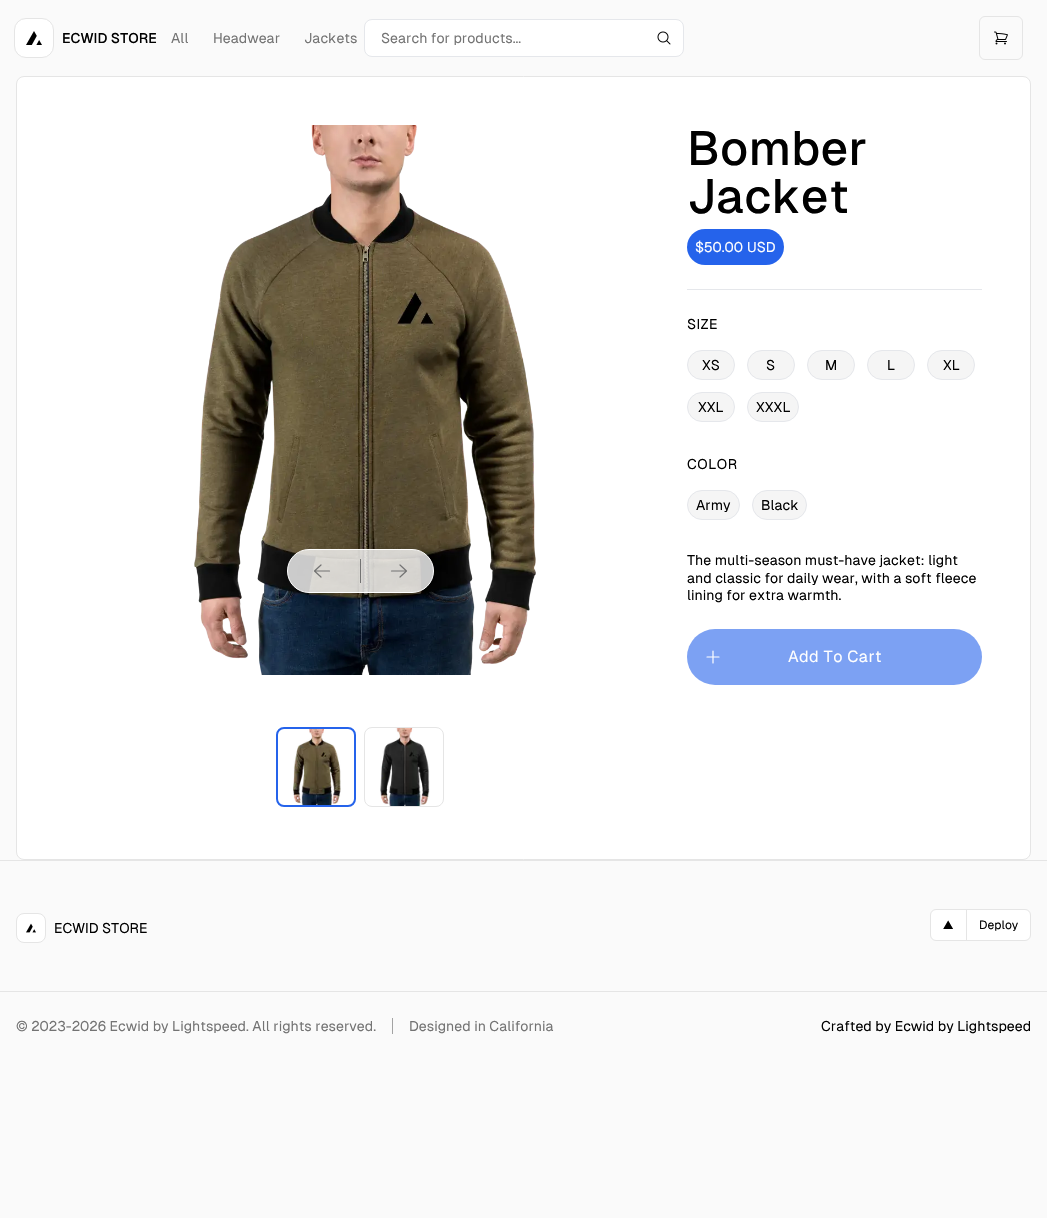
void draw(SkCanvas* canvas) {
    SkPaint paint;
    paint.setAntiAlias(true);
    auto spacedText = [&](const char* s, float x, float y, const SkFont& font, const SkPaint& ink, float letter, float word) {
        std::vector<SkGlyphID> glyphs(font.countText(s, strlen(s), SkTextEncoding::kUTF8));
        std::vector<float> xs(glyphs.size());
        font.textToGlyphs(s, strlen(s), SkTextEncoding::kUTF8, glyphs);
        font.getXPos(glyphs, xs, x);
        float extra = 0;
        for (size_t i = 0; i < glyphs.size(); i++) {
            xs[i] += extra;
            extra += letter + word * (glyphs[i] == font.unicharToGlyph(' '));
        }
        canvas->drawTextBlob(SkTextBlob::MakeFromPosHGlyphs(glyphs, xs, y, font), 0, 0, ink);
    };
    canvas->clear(0xFFFAFAFA);
    paint.setColor(0xFFFFFFFF);
    canvas->drawRoundRect(SkRect::MakeXYWH(14.5f, 18.5f, 39, 39), 11.5f, 11.5f, paint);
    paint.setStyle(SkPaint::kStroke_Style);
    paint.setStrokeWidth(1);
    paint.setColor(0xFFE5E5E5);
    canvas->drawRoundRect(SkRect::MakeXYWH(14.5f, 18.5f, 39, 39), 11.5f, 11.5f, paint);
    canvas->drawImageRect(SkImages::DeferredFromEncodedData(SkData::MakeFromFileName("img1.png")), SkRect::MakeXYWH(26, 31, 16, 14), SkSamplingOptions());
    SkFont font1(fontMgr->matchFamilyStyle("Geist", SkFontStyle(500, SkFontStyle::kNormal_Width, SkFontStyle::kUpright_Slant)), 14);
    font1.setSubpixel(true);
    paint.setStyle(SkPaint::kFill_Style);
    paint.setColor(0xFF000000);
    canvas->drawString("ECWID STORE", 62, 43, font1, paint);
    SkFont font2(fontMgr->matchFamilyStyle("Geist", SkFontStyle::Normal()), 14);
    font2.setSubpixel(true);
    paint.setColor(0xFF737373);
    canvas->drawString("All", 171, 43, font2, paint);
    canvas->drawString("Headwear", 213, 43, font2, paint);
    canvas->drawString("Jackets", 304, 43, font2, paint);
    paint.setColor(0xFFFFFFFF);
    canvas->drawRoundRect(SkRect::MakeXYWH(364.5f, 19.5f, 319, 37), 7.5f, 7.5f, paint);
    paint.setStyle(SkPaint::kStroke_Style);
    paint.setColor(0xFFE5E7EB);
    canvas->drawRoundRect(SkRect::MakeXYWH(364.5f, 19.5f, 319, 37), 7.5f, 7.5f, paint);
    paint.setStyle(SkPaint::kFill_Style);
    paint.setColor(0xFF737373);
    canvas->drawString("Search for products...", 381, 43, font2, paint);
    canvas->drawImageRect(SkImages::DeferredFromEncodedData(SkData::MakeFromFileName("img2.png")), SkRect::MakeXYWH(657, 31, 14, 14), SkSamplingOptions());
    paint.setStyle(SkPaint::kStroke_Style);
    paint.setColor(0xFFE5E5E5);
    canvas->drawRoundRect(SkRect::MakeXYWH(979.5f, 16.5f, 43, 43), 5.5f, 5.5f, paint);
    canvas->drawImageRect(SkImages::DeferredFromEncodedData(SkData::MakeFromFileName("img3.png")), SkRect::MakeXYWH(994, 31, 14, 14), SkSamplingOptions());
    paint.setStyle(SkPaint::kFill_Style);
    paint.setColor(0xFFFFFFFF);
    canvas->drawRoundRect(SkRect::MakeXYWH(16.5f, 76.5f, 1014, 783), 7.5f, 7.5f, paint);
    paint.setStyle(SkPaint::kStroke_Style);
    paint.setColor(0xFFE5E5E5);
    canvas->drawRoundRect(SkRect::MakeXYWH(16.5f, 76.5f, 1014, 783), 7.5f, 7.5f, paint);
    canvas->drawImageRect(SkImages::DeferredFromEncodedData(SkData::MakeFromFileName("img4.png")), SkRect::MakeXYWH(194, 125, 342, 550), SkSamplingOptions());
    paint.setStyle(SkPaint::kFill_Style);
    paint.setColor(0xCCFAFAFA);
    canvas->drawRoundRect(SkRect::MakeXYWH(287.5f, 549.5f, 146, 43), 21.5f, 21.5f, paint);
    paint.setStyle(SkPaint::kStroke_Style);
    paint.setColor(0xFFFFFFFF);
    canvas->drawRoundRect(SkRect::MakeXYWH(287.5f, 549.5f, 146, 43), 21.5f, 21.5f, paint);
    paint.setStrokeWidth(1.2f);
    paint.setStrokeCap(SkPaint::kRound_Cap);
    paint.setStrokeJoin(SkPaint::kRound_Join);
    paint.setColor(0xFF737373);
    canvas->drawPath(SkPathBuilder().moveTo(321, 577).lineTo(314.5f, 571).moveTo(314.5f, 571).lineTo(321, 565).moveTo(314.5f, 571).lineTo(329.5f, 571).detach(), paint);
    paint.setStyle(SkPaint::kFill_Style);
    canvas->drawRect(SkRect::MakeXYWH(360, 559, 1, 24), paint);
    paint.setStyle(SkPaint::kStroke_Style);
    canvas->drawPath(SkPathBuilder().moveTo(400, 565).lineTo(406.5f, 571).moveTo(406.5f, 571).lineTo(400, 577).moveTo(406.5f, 571).lineTo(391.5f, 571).detach(), paint);
    paint.setStrokeWidth(2);
    paint.setStrokeCap(SkPaint::kButt_Cap);
    paint.setStrokeJoin(SkPaint::kMiter_Join);
    paint.setColor(0xFF2563EB);
    canvas->drawRoundRect(SkRect::MakeXYWH(277, 728, 78, 78), 7, 7, paint);
    canvas->drawImageRect(SkImages::DeferredFromEncodedData(SkData::MakeFromFileName("img5.png")), SkRect::MakeXYWH(293, 729, 48, 76), SkSamplingOptions());
    paint.setStrokeWidth(1);
    paint.setColor(0xFFE5E5E5);
    canvas->drawRoundRect(SkRect::MakeXYWH(364.5f, 727.5f, 79, 79), 7.5f, 7.5f, paint);
    canvas->drawImageRect(SkImages::DeferredFromEncodedData(SkData::MakeFromFileName("img6.png")), SkRect::MakeXYWH(380, 728, 50, 78), SkSamplingOptions());
    paint.setStyle(SkPaint::kFill_Style);
    paint.setColor(0xFFE5E7EB);
    canvas->drawRect(SkRect::MakeXYWH(687, 289, 295, 1), paint);
    SkFont font3(fontMgr->matchFamilyStyle("Geist", SkFontStyle(500, SkFontStyle::kNormal_Width, SkFontStyle::kUpright_Slant)), 48);
    font3.setSubpixel(true);
    paint.setColor(0xFF000000);
    canvas->drawString("Bomber", 687, 165, font3, paint);
    canvas->drawString("Jacket", 687, 213, font3, paint);
    paint.setColor(0xFF2563EB);
    canvas->drawRoundRect(SkRect::MakeXYWH(687, 229, 97, 36), 18, 18, paint);
    paint.setColor(0xFFFFFFFF);
    canvas->drawString("$50.00", 695, 252, font2, paint);
    canvas->drawString("USD", 747, 252, font2, paint);
    paint.setColor(0xFF000000);
    spacedText("SIZE", 687, 329, font2, paint, 0.5f, 0);
    paint.setColor(0xFFF5F5F5);
    canvas->drawRoundRect(SkRect::MakeXYWH(687.5f, 350.5f, 47, 29), 14.5f, 14.5f, paint);
    paint.setStyle(SkPaint::kStroke_Style);
    paint.setColor(0xFFE5E7EB);
    canvas->drawRoundRect(SkRect::MakeXYWH(687.5f, 350.5f, 47, 29), 14.5f, 14.5f, paint);
    paint.setStyle(SkPaint::kFill_Style);
    paint.setColor(0xFF000000);
    canvas->drawString("XS", 702, 370, font2, paint);
    paint.setColor(0xFFF5F5F5);
    canvas->drawRoundRect(SkRect::MakeXYWH(747.5f, 350.5f, 47, 29), 14.5f, 14.5f, paint);
    paint.setStyle(SkPaint::kStroke_Style);
    paint.setColor(0xFFE5E7EB);
    canvas->drawRoundRect(SkRect::MakeXYWH(747.5f, 350.5f, 47, 29), 14.5f, 14.5f, paint);
    paint.setStyle(SkPaint::kFill_Style);
    paint.setColor(0xFF000000);
    canvas->drawString("S", 766, 370, font2, paint);
    paint.setColor(0xFFF5F5F5);
    canvas->drawRoundRect(SkRect::MakeXYWH(807.5f, 350.5f, 47, 29), 14.5f, 14.5f, paint);
    paint.setStyle(SkPaint::kStroke_Style);
    paint.setColor(0xFFE5E7EB);
    canvas->drawRoundRect(SkRect::MakeXYWH(807.5f, 350.5f, 47, 29), 14.5f, 14.5f, paint);
    paint.setStyle(SkPaint::kFill_Style);
    paint.setColor(0xFF000000);
    canvas->drawString("M", 825, 370, font2, paint);
    paint.setColor(0xFFF5F5F5);
    canvas->drawRoundRect(SkRect::MakeXYWH(867.5f, 350.5f, 47, 29), 14.5f, 14.5f, paint);
    paint.setStyle(SkPaint::kStroke_Style);
    paint.setColor(0xFFE5E7EB);
    canvas->drawRoundRect(SkRect::MakeXYWH(867.5f, 350.5f, 47, 29), 14.5f, 14.5f, paint);
    paint.setStyle(SkPaint::kFill_Style);
    paint.setColor(0xFF000000);
    canvas->drawString("L", 887, 370, font2, paint);
    paint.setColor(0xFFF5F5F5);
    canvas->drawRoundRect(SkRect::MakeXYWH(927.5f, 350.5f, 47, 29), 14.5f, 14.5f, paint);
    paint.setStyle(SkPaint::kStroke_Style);
    paint.setColor(0xFFE5E7EB);
    canvas->drawRoundRect(SkRect::MakeXYWH(927.5f, 350.5f, 47, 29), 14.5f, 14.5f, paint);
    paint.setStyle(SkPaint::kFill_Style);
    paint.setColor(0xFF000000);
    canvas->drawString("XL", 943, 370, font2, paint);
    paint.setColor(0xFFF5F5F5);
    canvas->drawRoundRect(SkRect::MakeXYWH(687.5f, 392.5f, 47, 29), 14.5f, 14.5f, paint);
    paint.setStyle(SkPaint::kStroke_Style);
    paint.setColor(0xFFE5E7EB);
    canvas->drawRoundRect(SkRect::MakeXYWH(687.5f, 392.5f, 47, 29), 14.5f, 14.5f, paint);
    paint.setStyle(SkPaint::kFill_Style);
    paint.setColor(0xFF000000);
    canvas->drawString("XXL", 698, 412, font2, paint);
    paint.setColor(0xFFF5F5F5);
    canvas->drawRoundRect(SkRect::MakeXYWH(747.5f, 392.5f, 51, 29), 14.5f, 14.5f, paint);
    paint.setStyle(SkPaint::kStroke_Style);
    paint.setColor(0xFFE5E7EB);
    canvas->drawRoundRect(SkRect::MakeXYWH(747.5f, 392.5f, 51, 29), 14.5f, 14.5f, paint);
    paint.setStyle(SkPaint::kFill_Style);
    paint.setColor(0xFF000000);
    canvas->drawString("XXXL", 756, 412, font2, paint);
    spacedText("COLOR", 687, 469, font2, paint, 0.5f, 0);
    paint.setColor(0xFFF5F5F5);
    canvas->drawRoundRect(SkRect::MakeXYWH(687.5f, 490.5f, 52, 29), 14.5f, 14.5f, paint);
    paint.setStyle(SkPaint::kStroke_Style);
    paint.setColor(0xFFE5E7EB);
    canvas->drawRoundRect(SkRect::MakeXYWH(687.5f, 490.5f, 52, 29), 14.5f, 14.5f, paint);
    paint.setStyle(SkPaint::kFill_Style);
    paint.setColor(0xFF000000);
    canvas->drawString("Army", 696, 510, font2, paint);
    paint.setColor(0xFFF5F5F5);
    canvas->drawRoundRect(SkRect::MakeXYWH(752.5f, 490.5f, 54, 29), 14.5f, 14.5f, paint);
    paint.setStyle(SkPaint::kStroke_Style);
    paint.setColor(0xFFE5E7EB);
    canvas->drawRoundRect(SkRect::MakeXYWH(752.5f, 490.5f, 54, 29), 14.5f, 14.5f, paint);
    paint.setStyle(SkPaint::kFill_Style);
    paint.setColor(0xFF000000);
    canvas->drawString("Black", 761, 510, font2, paint);
    canvas->drawString("The multi-season must-have jacket: light", 687, 565, font2, paint);
    canvas->drawString("and classic for daily wear, with a soft fleece", 687, 583, font2, paint);
    canvas->drawString("lining for extra warmth.", 687, 600, font2, paint);
    paint.setColor(0xFF7CA1F3);
    canvas->drawRoundRect(SkRect::MakeXYWH(687, 629, 295, 56), 28, 28, paint);
    paint.setStyle(SkPaint::kStroke_Style);
    paint.setStrokeWidth(1.2f);
    paint.setStrokeCap(SkPaint::kRound_Cap);
    paint.setStrokeJoin(SkPaint::kRound_Join);
    paint.setColor(0xFFFFFFFF);
    canvas->drawPath(SkPathBuilder().moveTo(713, 651).lineTo(713, 663).moveTo(719, 657).lineTo(707, 657).detach(), paint);
    SkFont font4(fontMgr->matchFamilyStyle("Geist", SkFontStyle::Normal()), 16);
    font4.setSubpixel(true);
    paint.setStyle(SkPaint::kFill_Style);
    spacedText("Add To Cart", 788, 662, font4, paint, 0.4f, 0);
    paint.setColor(0xFFE5E5E5);
    canvas->drawRect(SkRect::MakeXYWH(0, 860, 1047, 1), paint);
    paint.setColor(0xFFFFFFFF);
    canvas->drawRoundRect(SkRect::MakeXYWH(16.5f, 913.5f, 29, 29), 7.5f, 7.5f, paint);
    paint.setStyle(SkPaint::kStroke_Style);
    paint.setStrokeWidth(1);
    paint.setStrokeCap(SkPaint::kButt_Cap);
    paint.setStrokeJoin(SkPaint::kMiter_Join);
    paint.setColor(0xFFE5E5E5);
    canvas->drawRoundRect(SkRect::MakeXYWH(16.5f, 913.5f, 29, 29), 7.5f, 7.5f, paint);
    canvas->drawImageRect(SkImages::DeferredFromEncodedData(SkData::MakeFromFileName("img7.png")), SkRect::MakeXYWH(26, 923, 10, 10), SkSamplingOptions());
    paint.setStyle(SkPaint::kFill_Style);
    paint.setColor(0xFF000000);
    canvas->drawString("ECWID STORE", 54, 933, font2, paint);
    paint.setColor(0xFFFFFFFF);
    canvas->drawRoundRect(SkRect::MakeXYWH(930.5f, 909.5f, 100, 31), 5.5f, 5.5f, paint);
    paint.setStyle(SkPaint::kStroke_Style);
    paint.setColor(0xFFE5E5E5);
    canvas->drawRoundRect(SkRect::MakeXYWH(930.5f, 909.5f, 100, 31), 5.5f, 5.5f, paint);
    SkFont font5(fontMgr->matchFamilyStyle("Geist", SkFontStyle::Normal()), 12);
    font5.setSubpixel(true);
    paint.setStyle(SkPaint::kFill_Style);
    paint.setColor(0xFF000000);
    canvas->drawString("▲", 943, 929, font5, paint);
    paint.setColor(0xFFE5E5E5);
    canvas->drawRect(SkRect::MakeXYWH(966, 910, 1, 30), paint);
    paint.setColor(0xFF000000);
    canvas->drawString("Deploy", 979, 929, font5, paint);
    paint.setColor(0xFFE5E5E5);
    canvas->drawRect(SkRect::MakeXYWH(0, 991, 1047, 1), paint);
    paint.setColor(0xFF737373);
    canvas->drawString("© 2023-2026 Ecwid by Lightspeed. All rights reserved.", 16, 1031, font2, paint);
    paint.setColor(0xFFA3A3A3);
    canvas->drawRect(SkRect::MakeXYWH(392, 1018, 1, 16), paint);
    paint.setColor(0xFF737373);
    canvas->drawString("Designed in California", 409, 1031, font2, paint);
    paint.setColor(0xFF000000);
    canvas->drawString("Crafted by Ecwid by Lightspeed", 821, 1031, font2, paint);
}
